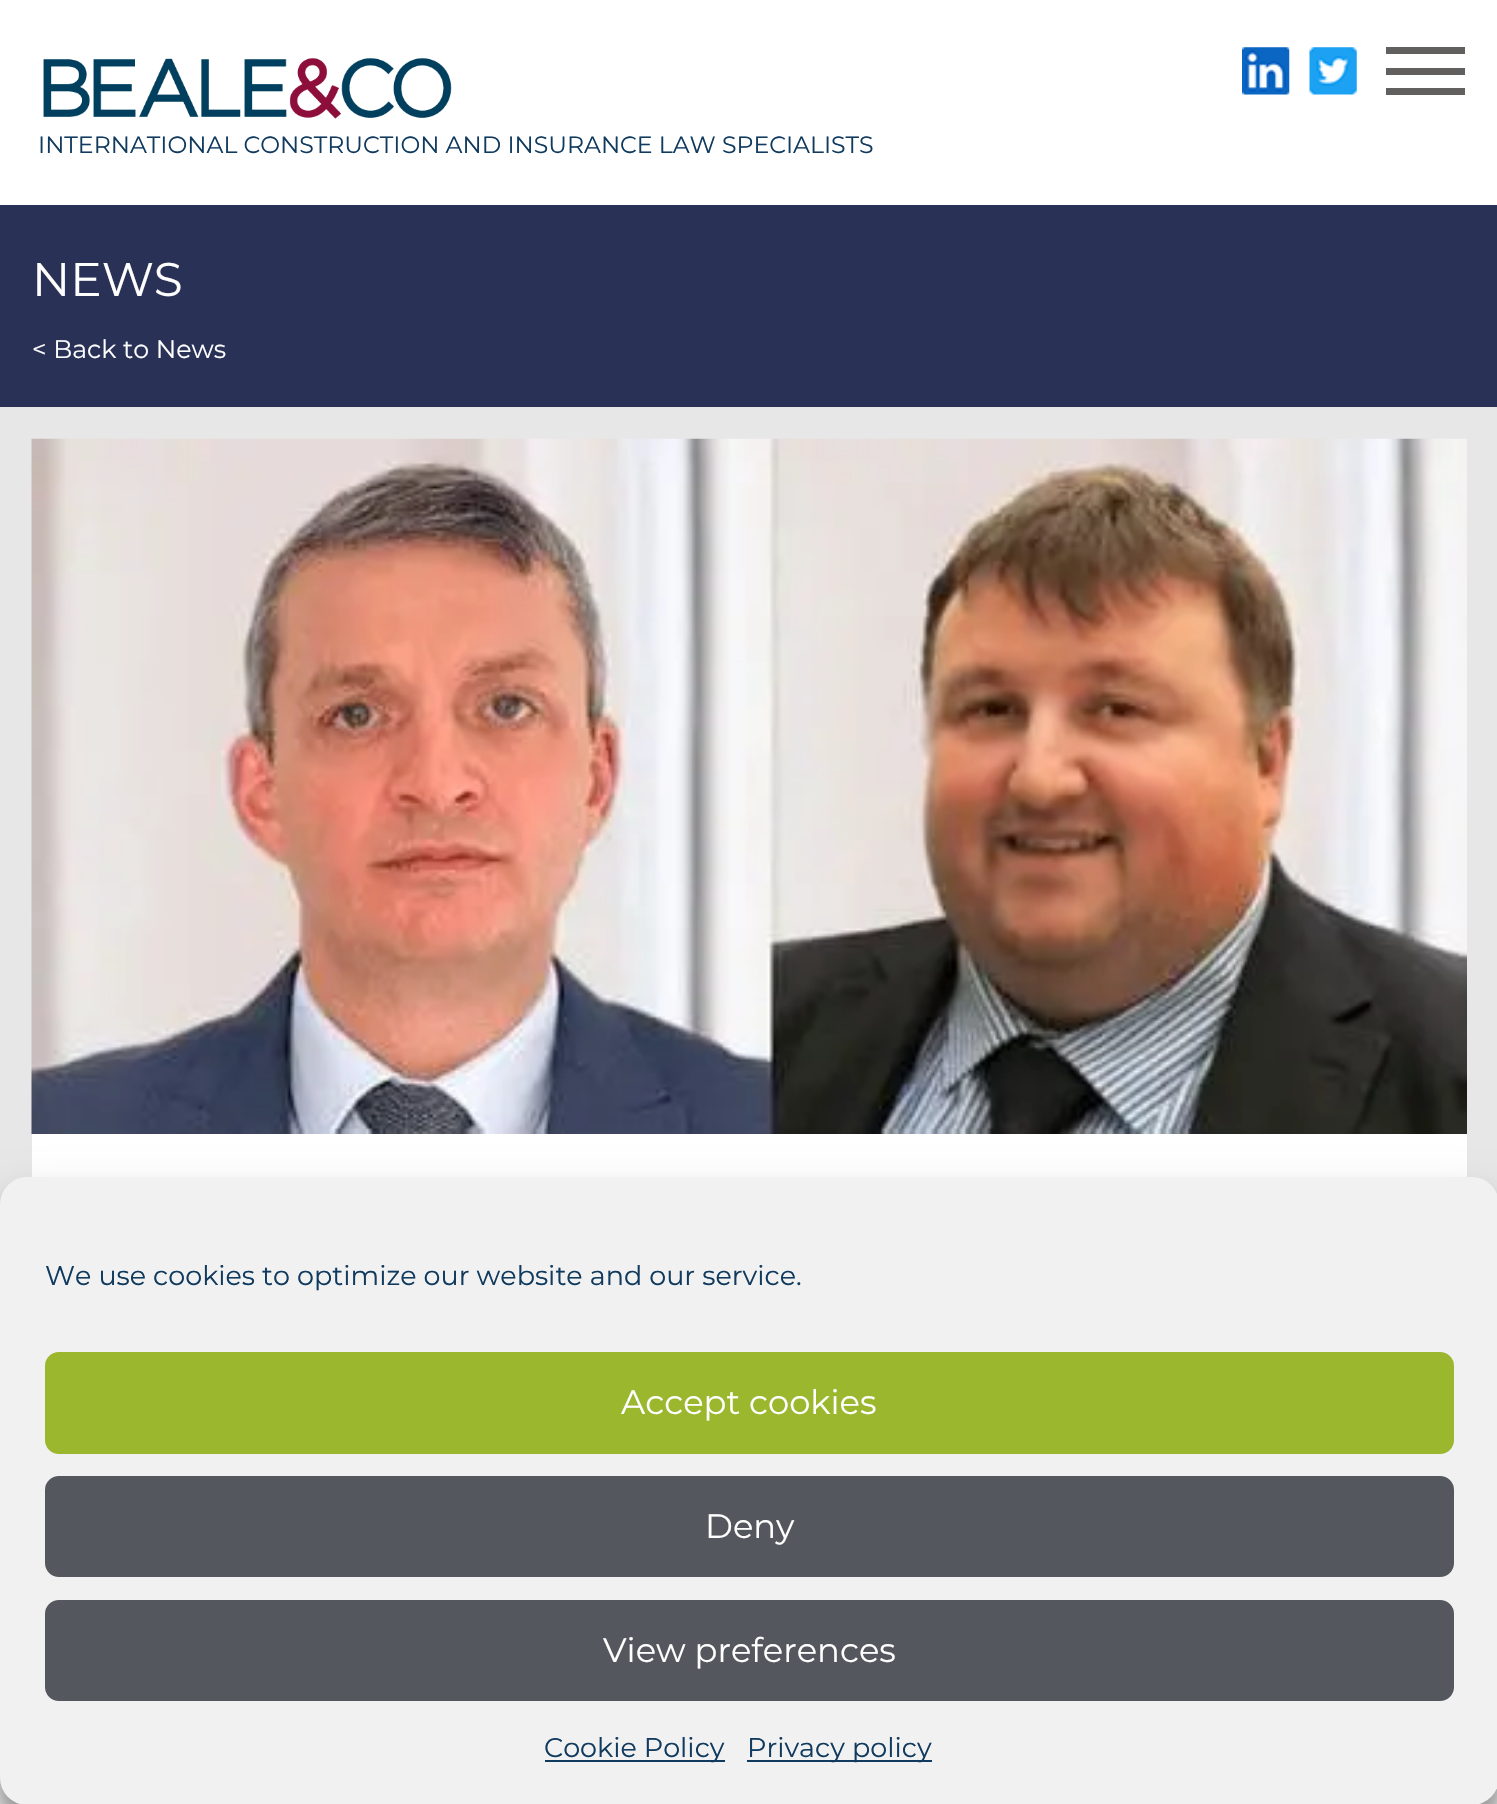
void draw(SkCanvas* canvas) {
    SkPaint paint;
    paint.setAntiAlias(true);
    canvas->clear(0xFFFFFFFF);
    canvas->drawImageRect(SkImages::DeferredFromEncodedData(SkData::MakeFromFileName("img1.png")), SkRect::MakeXYWH(1242, 47, 48, 48), SkSamplingOptions());
    canvas->drawImageRect(SkImages::DeferredFromEncodedData(SkData::MakeFromFileName("img2.png")), SkRect::MakeXYWH(1309, 47, 48, 48), SkSamplingOptions());
    paint.setColor(0xFF61605F);
    canvas->drawRect(SkRect::MakeXYWH(1386, 47, 79, 7), paint);
    canvas->drawRect(SkRect::MakeXYWH(1386, 68, 79, 7), paint);
    canvas->drawRect(SkRect::MakeXYWH(1386, 88, 79, 7), paint);
    canvas->drawImageRect(SkImages::DeferredFromEncodedData(SkData::MakeFromFileName("img3.png")), SkRect::MakeXYWH(43, 57, 409, 62), SkSamplingOptions());
    SkFont font1(fontMgr->matchFamilyStyle("Montserrat", SkFontStyle::Normal()), 23.6f);
    font1.setSubpixel(true);
    paint.setColor(0xFF103A5E);
    canvas->drawString("INTERNATIONAL CONSTRUCTION AND INSURANCE LAW SPECIALISTS", 38, 153, font1, paint);
    paint.setColor(0xFFE7E7E7);
    canvas->drawRect(SkRect::MakeXYWH(0, 407, 1497, 1397), paint);
    paint.setColor(0xFF293157);
    canvas->drawRect(SkRect::MakeXYWH(0, 205, 1497, 202), paint);
    SkFont font2(fontMgr->matchFamilyStyle("Montserrat", SkFontStyle::Normal()), 47);
    font2.setSubpixel(true);
    paint.setColor(0xFFFFFFFF);
    canvas->drawString("NEWS", 32, 296, font2, paint);
    SkFont font3(fontMgr->matchFamilyStyle("Montserrat", SkFontStyle::Normal()), 25.25f);
    font3.setSubpixel(true);
    canvas->drawString("< Back to News", 32, 358, font3, paint);
    canvas->drawRect(SkRect::MakeXYWH(32, 1134, 1435, 43), paint);
    canvas->drawImageRect(SkImages::DeferredFromEncodedData(SkData::MakeFromFileName("img4.png")), SkRect::MakeXYWH(31, 438, 1436, 696), SkSamplingOptions());
    paint.setColor(0x3B000000);
    paint.setMaskFilter(SkMaskFilter::MakeBlur(kNormal_SkBlurStyle, 7));
    canvas->drawRoundRect(SkRect::MakeXYWH(0, 1190, 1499, 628), 27, 27, paint);
    paint.setMaskFilter(nullptr);
    paint.setColor(0x30000000);
    paint.setMaskFilter(SkMaskFilter::MakeBlur(kNormal_SkBlurStyle, 22.5f));
    canvas->drawRoundRect(SkRect::MakeXYWH(0, 1199, 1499, 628), 27, 27, paint);
    paint.setMaskFilter(nullptr);
    paint.setColor(0xFFF1F1F1);
    canvas->drawRoundRect(SkRect::MakeXYWH(0, 1177, 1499, 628), 27, 27, paint);
    SkFont font4(fontMgr->matchFamilyStyle("Montserrat", SkFontStyle::Normal()), 27);
    font4.setSubpixel(true);
    paint.setColor(0xFF103A5E);
    canvas->drawString("We use cookies to optimize our website and our service.", 45, 1285, font4, paint);
    paint.setColor(0xFF9AB72D);
    canvas->drawRoundRect(SkRect::MakeXYWH(46, 1353, 1407, 100), 13, 13, paint);
    paint.setStyle(SkPaint::kStroke_Style);
    paint.setStrokeWidth(2);
    canvas->drawRoundRect(SkRect::MakeXYWH(46, 1353, 1407, 100), 13, 13, paint);
    SkFont font5(fontMgr->matchFamilyStyle("Montserrat", SkFontStyle::Normal()), 33.75f);
    font5.setSubpixel(true);
    paint.setStyle(SkPaint::kFill_Style);
    paint.setColor(0xFFFFFFFF);
    canvas->drawString("Accept cookies", 621, 1414, font5, paint);
    paint.setColor(0xFF55575E);
    canvas->drawRoundRect(SkRect::MakeXYWH(46, 1477, 1407, 99), 13, 13, paint);
    paint.setStyle(SkPaint::kStroke_Style);
    canvas->drawRoundRect(SkRect::MakeXYWH(46, 1477, 1407, 99), 13, 13, paint);
    paint.setStyle(SkPaint::kFill_Style);
    paint.setColor(0xFFFFFFFF);
    canvas->drawString("Deny", 705, 1538, font5, paint);
    paint.setColor(0xFF55575E);
    canvas->drawRoundRect(SkRect::MakeXYWH(46, 1601, 1407, 99), 13, 13, paint);
    paint.setStyle(SkPaint::kStroke_Style);
    canvas->drawRoundRect(SkRect::MakeXYWH(46, 1601, 1407, 99), 13, 13, paint);
    paint.setStyle(SkPaint::kFill_Style);
    paint.setColor(0xFFFFFFFF);
    canvas->drawString("View preferences", 603, 1662, font5, paint);
    paint.setColor(0xFF103A5E);
    canvas->drawRect(SkRect::MakeXYWH(545, 1760, 180, 2), paint);
    canvas->drawString("Cookie Policy", 544, 1757, font4, paint);
    canvas->drawRect(SkRect::MakeXYWH(747, 1760, 185, 2), paint);
    canvas->drawString("Privacy policy", 747, 1757, font4, paint);
}
